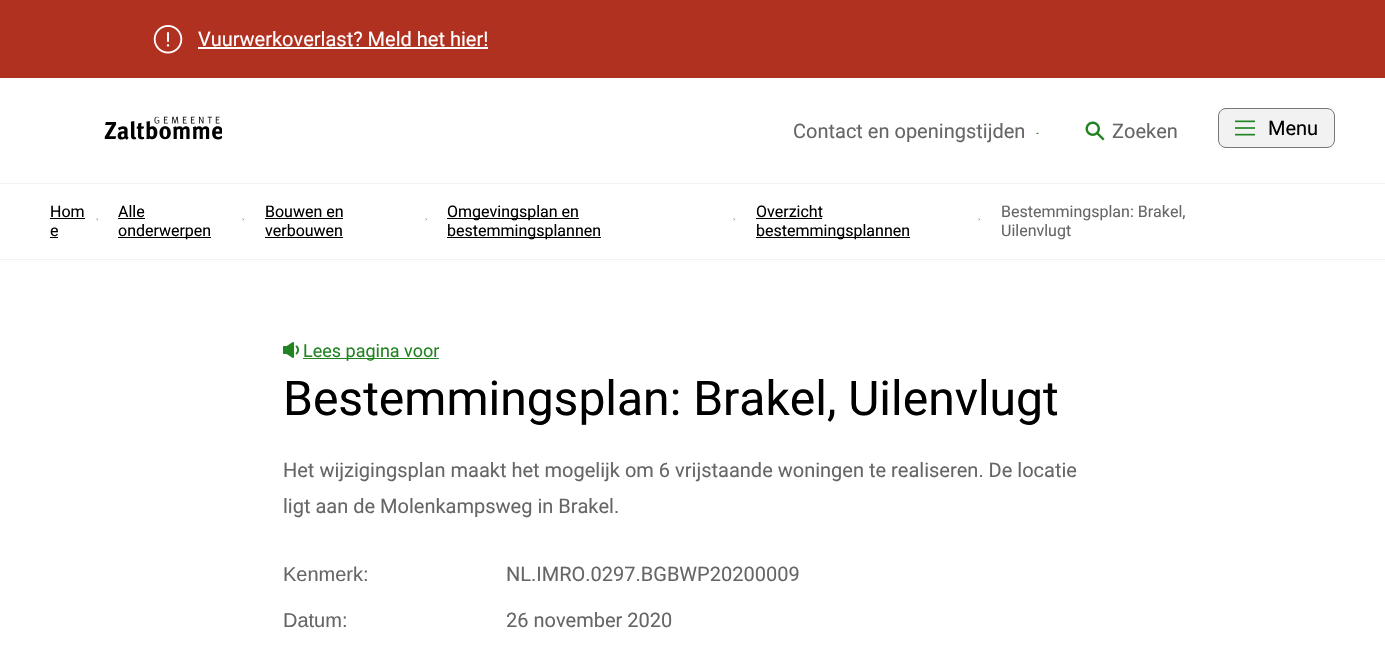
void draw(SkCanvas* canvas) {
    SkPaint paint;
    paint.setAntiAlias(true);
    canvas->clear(0xFFFFFFFF);
    paint.setColor(0xFFB13121);
    canvas->drawRect(SkRect::MakeXYWH(0, 0, 1385, 78), paint);
    canvas->drawImageRect(SkImages::DeferredFromEncodedData(SkData::MakeFromFileName("img1.png")), SkRect::MakeXYWH(153, 25, 30, 29), SkSamplingOptions());
    SkFont font1(fontMgr->matchFamilyStyle("Roboto", SkFontStyle::Normal()), 20);
    font1.setSubpixel(true);
    paint.setColor(0xFFFFFFFF);
    canvas->drawString("Vuurwerkoverlast? Meld het hier!", 198, 46, font1, paint);
    canvas->drawRect(SkRect::MakeXYWH(198, 47, 290, 2), paint);
    paint.setColor(0xFFF2F2F2);
    canvas->drawRect(SkRect::MakeXYWH(0, 183, 1385, 1), paint);
    canvas->drawImageRect(SkImages::DeferredFromEncodedData(SkData::MakeFromFileName("img2.png")), SkRect::MakeXYWH(104, 116, 118, 24), SkSamplingOptions());
    paint.setColor(0xFF666666);
    canvas->drawString("Contact en openingstijden", 793, 138, font1, paint);
    canvas->save();
    canvas->clipRect(SkRect::MakeXYWH(1034, 127, 11, 7));
    paint.setStyle(SkPaint::kStroke_Style);
    paint.setStrokeWidth(2.7f);
    paint.setStrokeCap(SkPaint::kSquare_Cap);
    paint.setColor(0xFF228322);
    canvas->drawPath(SkPathBuilder().moveTo(1051, 134.5f).lineTo(1044.5f, 141).lineTo(1037.5f, 134.5f).detach(), paint);
    canvas->restore();
    canvas->drawImageRect(SkImages::DeferredFromEncodedData(SkData::MakeFromFileName("img3.png")), SkRect::MakeXYWH(1085, 121, 20, 20), SkSamplingOptions());
    paint.setStyle(SkPaint::kFill_Style);
    paint.setColor(0xFF666666);
    canvas->drawString("Zoeken", 1112, 138, font1, paint);
    paint.setColor(0xFFF2F2F2);
    canvas->drawRoundRect(SkRect::MakeXYWH(1218.5f, 108.5f, 116, 39), 7.5f, 7.5f, paint);
    paint.setStyle(SkPaint::kStroke_Style);
    paint.setStrokeWidth(1);
    paint.setStrokeCap(SkPaint::kButt_Cap);
    paint.setColor(0xFF767676);
    canvas->drawRoundRect(SkRect::MakeXYWH(1218.5f, 108.5f, 116, 39), 7.5f, 7.5f, paint);
    canvas->drawImageRect(SkImages::DeferredFromEncodedData(SkData::MakeFromFileName("img4.png")), SkRect::MakeXYWH(1235, 120, 20, 16), SkSamplingOptions());
    paint.setStyle(SkPaint::kFill_Style);
    paint.setColor(0xFF000000);
    canvas->drawString("Menu", 1268, 135, font1, paint);
    paint.setColor(0xFFF2F2F2);
    canvas->drawRect(SkRect::MakeXYWH(0, 259, 1385, 1), paint);
    SkFont font2(fontMgr->matchFamilyStyle("Roboto", SkFontStyle::Normal()), 16);
    font2.setSubpixel(true);
    paint.setColor(0xFF000000);
    canvas->drawString("Hom", 50, 217, font2, paint);
    canvas->drawRect(SkRect::MakeXYWH(50, 218, 35, 1), paint);
    canvas->drawString("e", 50, 236, font2, paint);
    canvas->drawRect(SkRect::MakeXYWH(50, 237, 8, 1), paint);
    canvas->drawImageRect(SkImages::DeferredFromEncodedData(SkData::MakeFromFileName("img5.png")), SkRect::MakeXYWH(96, 218, 2, 3), SkSamplingOptions());
    canvas->drawString("Alle", 118, 217, font2, paint);
    canvas->drawRect(SkRect::MakeXYWH(118, 218, 27, 1), paint);
    canvas->drawRect(SkRect::MakeXYWH(118, 237, 93, 1), paint);
    canvas->drawString("onderwerpen", 118, 236, font2, paint);
    canvas->drawImageRect(SkImages::DeferredFromEncodedData(SkData::MakeFromFileName("img6.png")), SkRect::MakeXYWH(242, 218, 2, 3), SkSamplingOptions());
    canvas->drawString("Bouwen en", 265, 217, font2, paint);
    canvas->drawRect(SkRect::MakeXYWH(265, 218, 78, 1), paint);
    canvas->drawString("verbouwen", 265, 236, font2, paint);
    canvas->drawRect(SkRect::MakeXYWH(265, 237, 78, 1), paint);
    canvas->drawImageRect(SkImages::DeferredFromEncodedData(SkData::MakeFromFileName("img6.png")), SkRect::MakeXYWH(425, 218, 2, 3), SkSamplingOptions());
    canvas->drawRect(SkRect::MakeXYWH(447, 218, 132, 1), paint);
    canvas->drawString("Omgevingsplan en", 447, 217, font2, paint);
    canvas->drawRect(SkRect::MakeXYWH(447, 237, 154, 1), paint);
    canvas->drawString("bestemmingsplannen", 447, 236, font2, paint);
    canvas->drawImageRect(SkImages::DeferredFromEncodedData(SkData::MakeFromFileName("img7.png")), SkRect::MakeXYWH(733, 218, 2, 3), SkSamplingOptions());
    canvas->drawString("Overzicht", 756, 217, font2, paint);
    canvas->drawRect(SkRect::MakeXYWH(756, 218, 66, 1), paint);
    canvas->drawRect(SkRect::MakeXYWH(756, 237, 154, 1), paint);
    canvas->drawString("bestemmingsplannen", 756, 236, font2, paint);
    canvas->drawImageRect(SkImages::DeferredFromEncodedData(SkData::MakeFromFileName("img7.png")), SkRect::MakeXYWH(978, 218, 2, 3), SkSamplingOptions());
    paint.setColor(0xFF666666);
    canvas->drawString("Bestemmingsplan: Brakel,", 1001, 217, font2, paint);
    canvas->drawString("Uilenvlugt", 1001, 236, font2, paint);
    canvas->drawImageRect(SkImages::DeferredFromEncodedData(SkData::MakeFromFileName("img8.png")), SkRect::MakeXYWH(283, 342, 16, 16), SkSamplingOptions());
    paint.setColor(0xFF228322);
    canvas->drawRect(SkRect::MakeXYWH(303, 358, 136, 1), paint);
    SkFont font3(fontMgr->matchFamilyStyle("Roboto", SkFontStyle::Normal()), 18);
    font3.setSubpixel(true);
    canvas->drawString("Lees pagina voor", 303, 357, font3, paint);
    SkFont font4(fontMgr->matchFamilyStyle("Roboto", SkFontStyle::Normal()), 48);
    font4.setSubpixel(true);
    paint.setColor(0xFF000000);
    canvas->drawString("Bestemmingsplan: Brakel, Uilenvlugt", 283, 415, font4, paint);
    paint.setColor(0xFF666666);
    canvas->drawString("Het wijzigingsplan maakt het mogelijk om 6 vrijstaande woningen te realiseren. De locatie", 283, 477, font1, paint);
    canvas->drawString("ligt aan de Molenkampsweg in Brakel.", 283, 513, font1, paint);
    SkFont font5(fontMgr->matchFamilyStyle("Liberation Sans", SkFontStyle::Normal()), 20);
    font5.setSubpixel(true);
    canvas->drawString("Kenmerk:", 283, 581, font5, paint);
    canvas->drawString("NL.IMRO.0297.BGBWP20200009", 506, 581, font1, paint);
    canvas->drawString("Datum:", 283, 627, font5, paint);
    canvas->drawString("26 november 2020", 506, 627, font1, paint);
}
